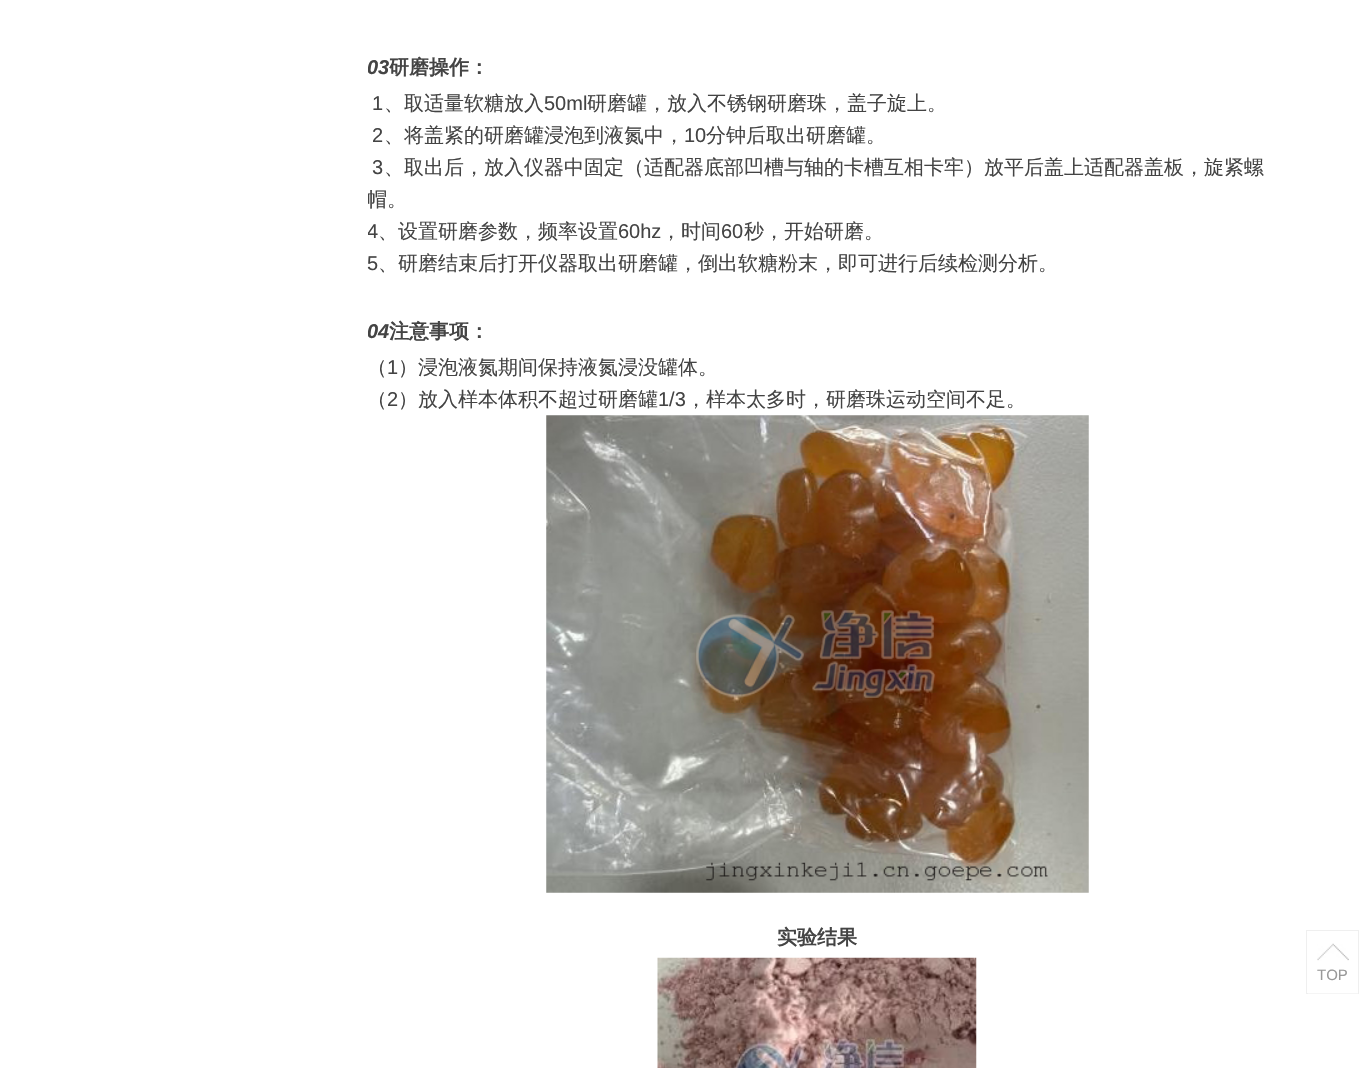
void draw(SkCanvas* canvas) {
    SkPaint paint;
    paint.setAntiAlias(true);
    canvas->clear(0xFFFFFFFF);
    canvas->save();
    canvas->clipRect(SkRect::MakeXYWH(368, 0, 900, 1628));
    SkFont font1(fontMgr->matchFamilyStyle("Liberation Sans", SkFontStyle::BoldItalic()), 20);
    font1.setSubpixel(true);
    paint.setColor(0xFF444444);
    canvas->drawString("0", 367, 74, font1, paint);
    canvas->restore();
    canvas->drawString("3", 378, 74, font1, paint);
    SkFont font2(fontMgr->matchFamilyStyle("WenQuanYi Zen Hei", SkFontStyle::Bold()), 20);
    font2.setSubpixel(true);
    canvas->drawString("研磨操作：", 389, 74, font2, paint);
    SkFont font3(fontMgr->matchFamilyStyle("Liberation Sans", SkFontStyle::Normal()), 20);
    font3.setSubpixel(true);
    canvas->drawString("1", 372, 110, font3, paint);
    SkFont font4(fontMgr->matchFamilyStyle("WenQuanYi Zen Hei", SkFontStyle(500, SkFontStyle::kNormal_Width, SkFontStyle::kUpright_Slant)), 20);
    font4.setSubpixel(true);
    canvas->drawString("、取适量软糖放入", 384, 110, font4, paint);
    canvas->drawString("50ml", 544, 110, font3, paint);
    canvas->drawString("研磨罐，放入不锈钢研磨珠，盖子旋上。", 587, 110, font4, paint);
    canvas->drawString("2", 372, 142, font3, paint);
    canvas->drawString("、将盖紧的研磨罐浸泡到液氮中，", 384, 142, font4, paint);
    canvas->drawString("10", 684, 142, font3, paint);
    canvas->drawString("分钟后取出研磨罐。", 706, 142, font4, paint);
    canvas->drawString("3", 372, 174, font3, paint);
    canvas->drawString("、取出后，放入仪器中固定（适配器底部凹槽与轴的卡槽互相卡牢）放平后盖上适配器盖板，旋紧螺", 384, 174, font4, paint);
    canvas->save();
    canvas->clipRect(SkRect::MakeXYWH(368, 0, 900, 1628));
    canvas->drawString("帽。", 367, 206, font4, paint);
    canvas->drawString("4", 367, 238, font3, paint);
    canvas->restore();
    canvas->drawString("、设置研磨参数，频率设置", 378, 238, font4, paint);
    canvas->drawString("60hz", 618, 238, font3, paint);
    canvas->drawString("，时间", 661, 238, font4, paint);
    canvas->drawString("60", 721, 238, font3, paint);
    canvas->drawString("秒，开始研磨。", 744, 238, font4, paint);
    canvas->drawString("5", 367, 270, font3, paint);
    canvas->drawString("、研磨结束后打开仪器取出研磨罐，倒出软糖粉末，即可进行后续检测分析。", 378, 270, font4, paint);
    canvas->save();
    canvas->clipRect(SkRect::MakeXYWH(368, 0, 900, 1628));
    canvas->drawString("0", 367, 338, font1, paint);
    canvas->restore();
    canvas->drawString("4", 378, 338, font1, paint);
    canvas->drawString("注意事项：", 389, 338, font2, paint);
    canvas->drawString("（", 367, 374, font4, paint);
    canvas->drawString("1", 387, 374, font3, paint);
    canvas->drawString("）浸泡液氮期间保持液氮浸没罐体。", 398, 374, font4, paint);
    canvas->drawString("（", 367, 406, font4, paint);
    canvas->drawString("2", 387, 406, font3, paint);
    canvas->drawString("）放入样本体积不超过研磨罐", 398, 406, font4, paint);
    canvas->drawString("1/3", 658, 406, font3, paint);
    canvas->drawString("，样本太多时，研磨珠运动空间不足。", 686, 406, font4, paint);
    canvas->drawImageRect(SkImages::DeferredFromEncodedData(SkData::MakeFromFileName("img1.png")), SkRect::MakeXYWH(546, 415, 543, 478), SkSamplingOptions());
    canvas->drawString("实验结果", 777, 944, font2, paint);
    canvas->drawImageRect(SkImages::DeferredFromEncodedData(SkData::MakeFromFileName("img2.png")), SkRect::MakeXYWH(657, 957, 320, 111), SkSamplingOptions());
    paint.setStyle(SkPaint::kStroke_Style);
    paint.setStrokeWidth(1);
    paint.setColor(0xFFEFEFEF);
    canvas->drawRect(SkRect::MakeXYWH(1306.5f, 930.5f, 52, 63), paint);
    canvas->drawImageRect(SkImages::DeferredFromEncodedData(SkData::MakeFromFileName("img3.png")), SkRect::MakeXYWH(1317, 943, 32, 18), SkSamplingOptions());
    paint.setStyle(SkPaint::kFill_Style);
    paint.setColor(0xFFF5F5F5);
    canvas->drawRect(SkRect::MakeXYWH(1308, 993, 50, 1), paint);
    SkFont font5(fontMgr->matchFamilyStyle("Liberation Sans", SkFontStyle::Normal()), 15);
    font5.setSubpixel(true);
    paint.setColor(0xFF999999);
    canvas->drawString("TOP", 1317, 980, font5, paint);
}
